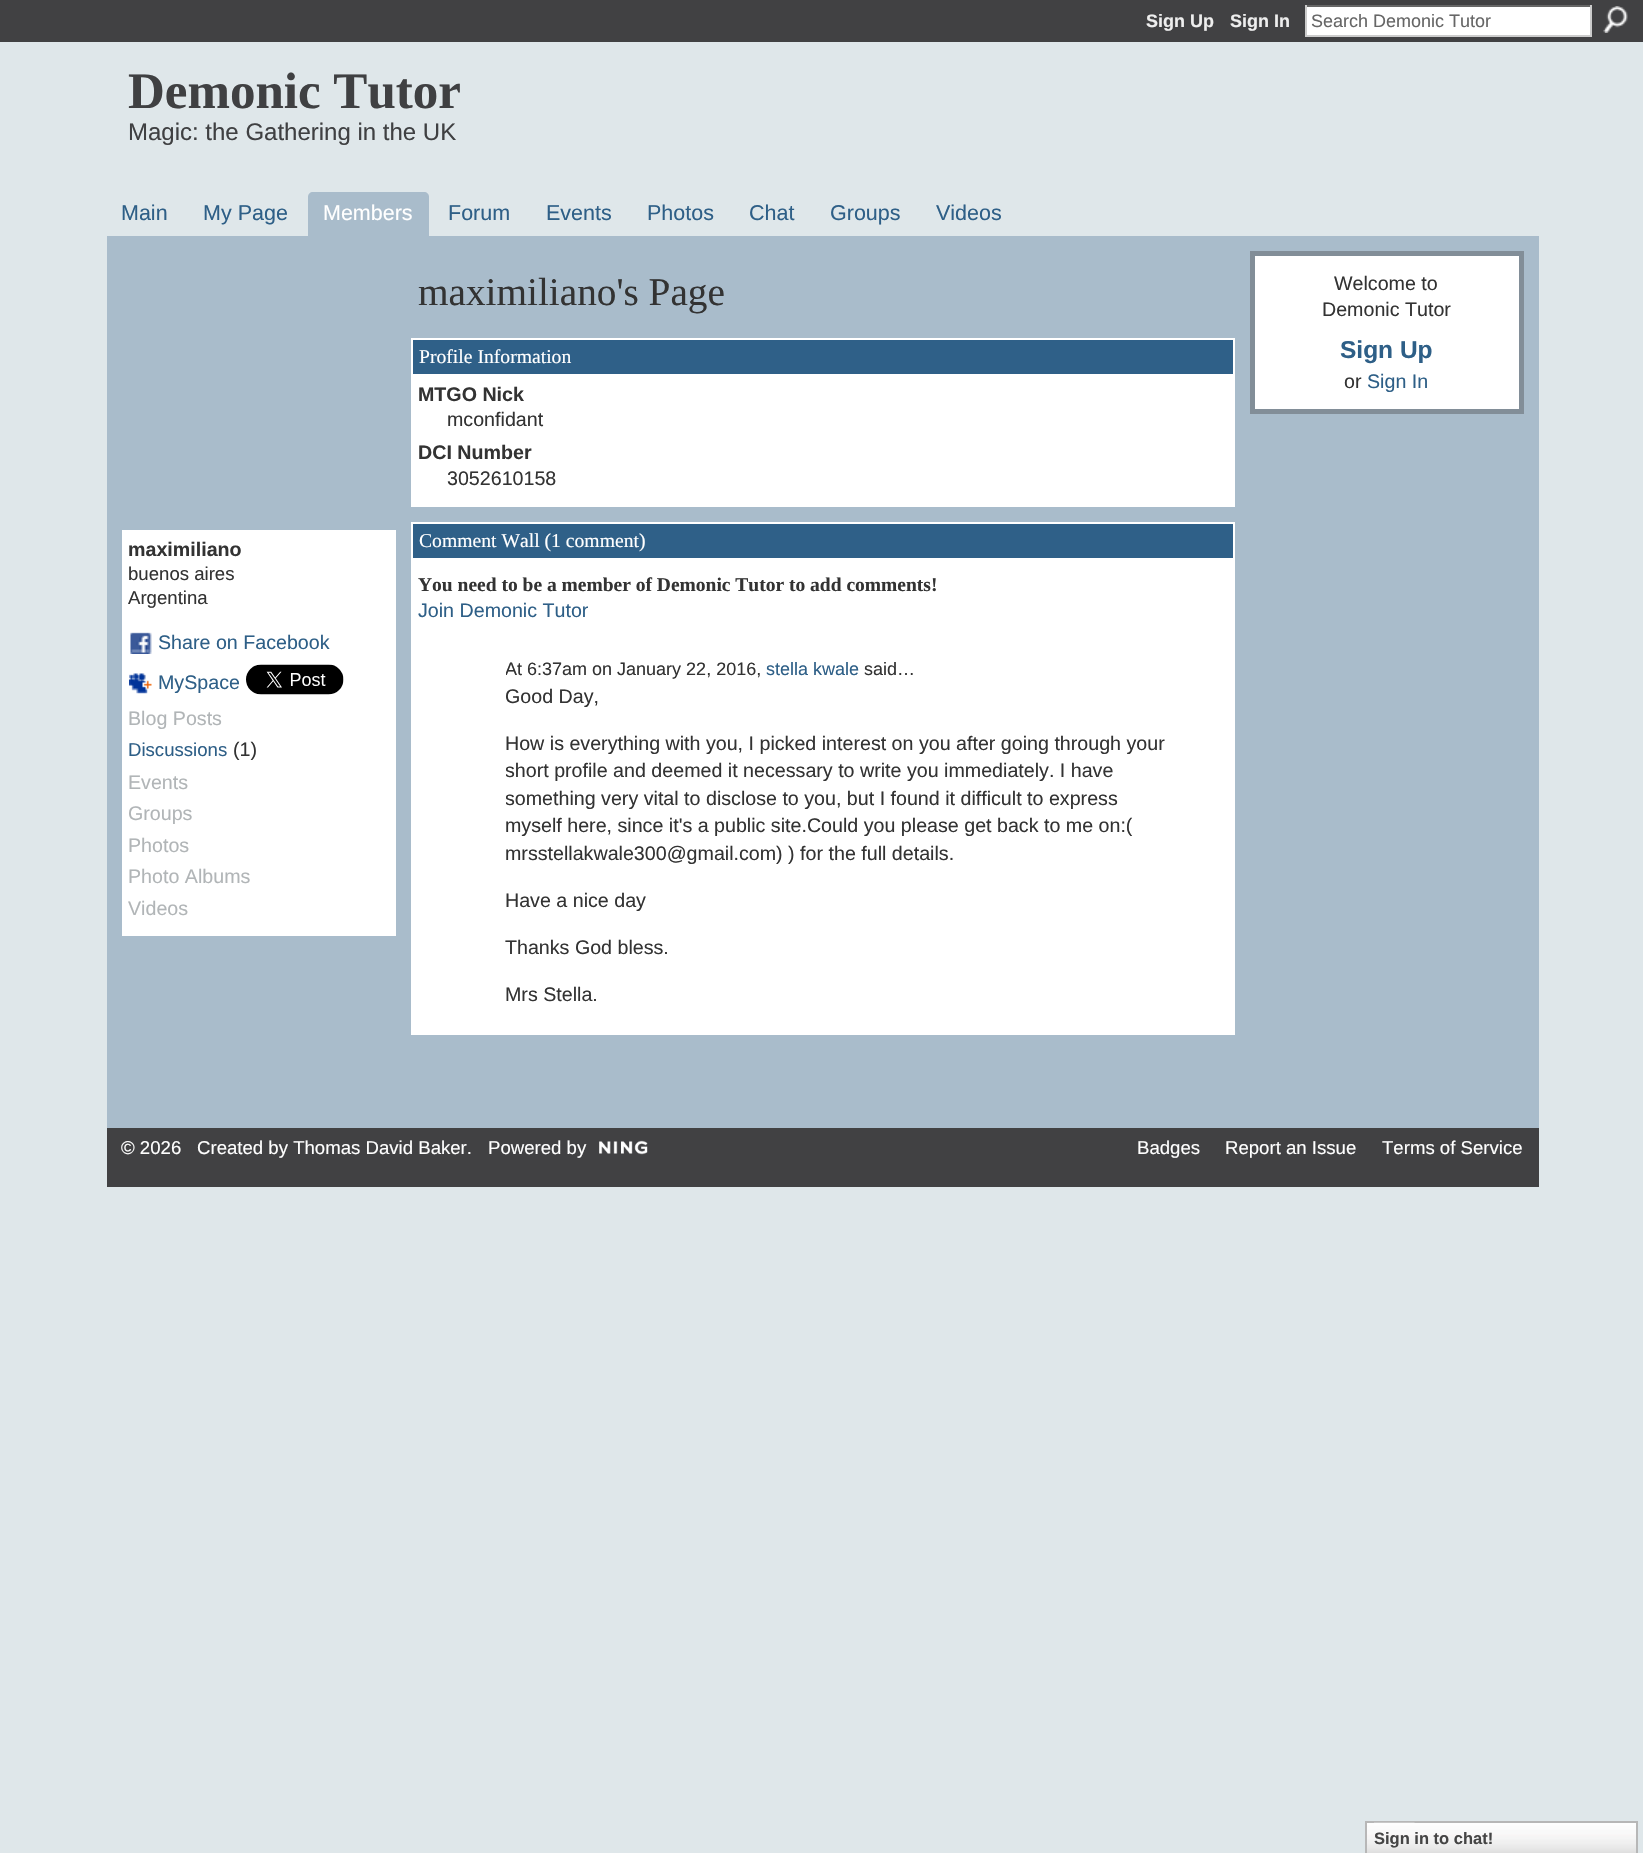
void draw(SkCanvas* canvas) {
    SkPaint paint;
    paint.setAntiAlias(true);
    canvas->clear(0xFFDFE7EA);
    paint.setColor(0xFF414143);
    canvas->drawRect(SkRect::MakeXYWH(0, 0, 1643, 42), paint);
    SkFont font1(fontMgr->matchFamilyStyle("Liberation Sans", SkFontStyle::Bold()), 18);
    font1.setSubpixel(true);
    paint.setColor(0xFFEEEEEE);
    canvas->drawString("Sign Up", 1146, 27, font1, paint);
    canvas->drawString("Sign In", 1230, 27, font1, paint);
    paint.setColor(0xFFFFFFFF);
    canvas->drawRect(SkRect::MakeXYWH(1307, 7, 283, 28), paint);
    paint.setColor(0xFF666666);
    canvas->drawRect(SkRect::MakeXYWH(1305, 5, 287, 2), paint);
    paint.setColor(0xFFCCCCCC);
    canvas->drawRect(SkRect::MakeXYWH(1590, 5, 2, 31), paint);
    canvas->drawRect(SkRect::MakeXYWH(1305, 35, 287, 2), paint);
    canvas->drawRect(SkRect::MakeXYWH(1305, 5, 2, 31), paint);
    SkFont font2(fontMgr->matchFamilyStyle("Liberation Sans", SkFontStyle::Normal()), 18);
    font2.setSubpixel(true);
    paint.setColor(0xFF666666);
    canvas->drawString("Search Demonic Tutor", 1311, 27, font2, paint);
    canvas->drawImageRect(SkImages::DeferredFromEncodedData(SkData::MakeFromFileName("img1.png")), SkRect::MakeXYWH(1603, 6, 25, 27), SkSamplingOptions());
    SkFont font3(fontMgr->matchFamilyStyle("Liberation Serif", SkFontStyle::Bold()), 51);
    font3.setSubpixel(true);
    paint.setColor(0xFF3F4042);
    canvas->drawString("Demonic Tutor", 128, 108, font3, paint);
    SkFont font4(fontMgr->matchFamilyStyle("Liberation Sans", SkFontStyle::Normal()), 24);
    font4.setSubpixel(true);
    canvas->drawString("Magic: the Gathering in the UK", 128, 140, font4, paint);
    SkFont font5(fontMgr->matchFamilyStyle("Liberation Sans", SkFontStyle::Normal()), 21.5f);
    font5.setSubpixel(true);
    paint.setColor(0xFF2E5F87);
    canvas->drawString("Main", 121, 220, font5, paint);
    canvas->drawString("My Page", 203, 220, font5, paint);
    paint.setColor(0xFFA9BCCB);
    canvas->drawPath(SkPathBuilder().moveTo(313, 192).lineTo(424, 192).cubicTo(427, 192, 429, 194, 429, 197).lineTo(429, 236).lineTo(308, 236).lineTo(308, 197).cubicTo(308, 194, 310, 192, 313, 192).close().detach(), paint);
    paint.setColor(0xFFFFFFFF);
    canvas->drawString("Members", 323, 220, font5, paint);
    paint.setColor(0xFF2E5F87);
    canvas->drawString("Forum", 448, 220, font5, paint);
    canvas->drawString("Events", 546, 220, font5, paint);
    canvas->drawString("Photos", 647, 220, font5, paint);
    canvas->drawString("Chat", 749, 220, font5, paint);
    canvas->drawString("Groups", 830, 220, font5, paint);
    canvas->drawString("Videos", 936, 220, font5, paint);
    paint.setColor(0xFFA9BCCB);
    canvas->drawRect(SkRect::MakeXYWH(107, 236, 1432, 892), paint);
    paint.setColor(0xFFFFFFFF);
    canvas->drawRect(SkRect::MakeXYWH(122, 530, 274, 406), paint);
    SkFont font6(fontMgr->matchFamilyStyle("Liberation Sans", SkFontStyle::Bold()), 19.65f);
    font6.setSubpixel(true);
    paint.setColor(0xFF333333);
    canvas->drawString("maximiliano", 128, 556, font6, paint);
    SkFont font7(fontMgr->matchFamilyStyle("Liberation Sans", SkFontStyle::Normal()), 18.6f);
    font7.setSubpixel(true);
    canvas->drawString("buenos aires", 128, 580, font7, paint);
    canvas->drawString("Argentina", 128, 604, font7, paint);
    canvas->drawImageRect(SkImages::DeferredFromEncodedData(SkData::MakeFromFileName("img2.png")), SkRect::MakeXYWH(130, 632, 22, 22), SkSamplingOptions());
    SkFont font8(fontMgr->matchFamilyStyle("Liberation Sans", SkFontStyle::Normal()), 19.65f);
    font8.setSubpixel(true);
    paint.setColor(0xFF2E5F87);
    canvas->drawString("Share on Facebook", 158, 649, font8, paint);
    canvas->drawImageRect(SkImages::DeferredFromEncodedData(SkData::MakeFromFileName("img3.png")), SkRect::MakeXYWH(129, 673, 23, 21), SkSamplingOptions());
    canvas->drawString("MySpace", 158, 689, font8, paint);
    canvas->drawImageRect(SkImages::DeferredFromEncodedData(SkData::MakeFromFileName("img4.png")), SkRect::MakeXYWH(246, 664, 98, 31), SkSamplingOptions());
    paint.setColor(0xFFB1B5B7);
    canvas->drawString("Blog Posts", 128, 725, font8, paint);
    paint.setColor(0xFF2E5F87);
    canvas->drawString("Discussions", 128, 756, font7, paint);
    paint.setColor(0xFF333333);
    canvas->drawString("(1)", 233, 756, font8, paint);
    paint.setColor(0xFFB1B5B7);
    canvas->drawString("Events", 128, 789, font8, paint);
    canvas->drawString("Groups", 128, 820, font8, paint);
    canvas->drawString("Photos", 128, 852, font8, paint);
    canvas->drawString("Photo Albums", 128, 883, font8, paint);
    canvas->drawString("Videos", 128, 915, font8, paint);
    SkFont font9(fontMgr->matchFamilyStyle("Liberation Serif", SkFontStyle::Normal()), 39.25f);
    font9.setSubpixel(true);
    paint.setColor(0xFF333333);
    canvas->drawString("maximiliano's Page", 418, 305, font9, paint);
    paint.setColor(0xFF2F6088);
    canvas->drawRect(SkRect::MakeXYWH(413, 340, 820, 34), paint);
    paint.setColor(0xFFFFFFFF);
    canvas->drawRect(SkRect::MakeXYWH(411, 338, 824, 2), paint);
    canvas->drawRect(SkRect::MakeXYWH(1233, 338, 2, 36), paint);
    canvas->drawRect(SkRect::MakeXYWH(411, 338, 2, 36), paint);
    SkFont font10(fontMgr->matchFamilyStyle("Liberation Serif", SkFontStyle::Normal()), 19.65f);
    font10.setSubpixel(true);
    canvas->drawString("Profile Information", 419, 363, font10, paint);
    canvas->drawRect(SkRect::MakeXYWH(411, 374, 824, 133), paint);
    paint.setColor(0xFF333333);
    canvas->drawString("MTGO Nick", 418, 401, font6, paint);
    canvas->drawString("mconfidant", 447, 426, font8, paint);
    canvas->drawString("DCI Number", 418, 459, font6, paint);
    canvas->drawString("3052610158", 447, 485, font8, paint);
    paint.setColor(0xFF2F6088);
    canvas->drawRect(SkRect::MakeXYWH(413, 524, 820, 34), paint);
    paint.setColor(0xFFFFFFFF);
    canvas->drawRect(SkRect::MakeXYWH(411, 522, 824, 2), paint);
    canvas->drawRect(SkRect::MakeXYWH(1233, 522, 2, 36), paint);
    canvas->drawRect(SkRect::MakeXYWH(411, 522, 2, 36), paint);
    canvas->drawString("Comment Wall (1 comment)", 419, 547, font10, paint);
    canvas->drawRect(SkRect::MakeXYWH(411, 558, 824, 477), paint);
    SkFont font11(fontMgr->matchFamilyStyle("Liberation Serif", SkFontStyle::Bold()), 19.5f);
    font11.setSubpixel(true);
    paint.setColor(0xFF333333);
    canvas->drawString("You need to be a member of Demonic Tutor to add comments!", 418, 591, font11, paint);
    paint.setColor(0xFF2E5F87);
    canvas->drawString("Join Demonic Tutor", 418, 617, font8, paint);
    canvas->save();
    canvas->clipRect(SkRect::MakeXYWH(506, 659, 669, 22));
    paint.setColor(0xFF333333);
    canvas->drawString("At 6:37am on January 22, 2016,", 505, 675, font2, paint);
    canvas->restore();
    paint.setColor(0xFF2E5F87);
    canvas->drawString("stella kwale", 766, 675, font2, paint);
    paint.setColor(0xFF333333);
    canvas->drawString("said…", 864, 675, font2, paint);
    canvas->save();
    canvas->clipRect(SkRect::MakeXYWH(506, 684, 669, 326));
    canvas->drawString("Good Day,", 505, 703, font8, paint);
    canvas->restore();
    canvas->drawString("How is everything with you, I picked interest on you after going through your", 505, 750, font8, paint);
    canvas->save();
    canvas->clipRect(SkRect::MakeXYWH(506, 684, 669, 326));
    canvas->drawString("short profile and deemed it necessary to write you immediately. I have", 505, 777, font8, paint);
    canvas->drawString("something very vital to disclose to you, but I found it difficult to express", 505, 805, font8, paint);
    canvas->restore();
    canvas->drawString("myself here, since it's a public site.Could you please get back to me on:(", 505, 832, font8, paint);
    canvas->drawString("mrsstellakwale300@gmail.com) ) for the full details.", 505, 860, font8, paint);
    canvas->drawString("Have a nice day", 505, 907, font8, paint);
    canvas->drawString("Thanks God bless.", 505, 954, font8, paint);
    canvas->drawString("Mrs Stella.", 505, 1001, font8, paint);
    paint.setColor(0xFFFFFFFF);
    canvas->drawRect(SkRect::MakeXYWH(1252.5f, 253.5f, 269, 158), paint);
    paint.setStyle(SkPaint::kStroke_Style);
    paint.setStrokeWidth(5);
    paint.setColor(0xFF828E98);
    canvas->drawRect(SkRect::MakeXYWH(1252.5f, 253.5f, 269, 158), paint);
    paint.setStyle(SkPaint::kFill_Style);
    paint.setColor(0xFF333333);
    canvas->drawString("Welcome to", 1334, 290, font8, paint);
    canvas->drawString("Demonic Tutor", 1322, 316, font8, paint);
    SkFont font12(fontMgr->matchFamilyStyle("Liberation Sans", SkFontStyle::Bold()), 24.5f);
    font12.setSubpixel(true);
    paint.setColor(0xFF2E5F87);
    canvas->drawString("Sign Up", 1340, 358, font12, paint);
    paint.setColor(0xFF333333);
    canvas->drawString("or", 1344, 388, font8, paint);
    paint.setColor(0xFF2E5F87);
    canvas->drawString("Sign In", 1367, 388, font8, paint);
    paint.setColor(0xFF414143);
    canvas->drawRect(SkRect::MakeXYWH(107, 1128, 1432, 59), paint);
    paint.setColor(0xFFFFFFFF);
    canvas->drawString("© 2026", 121, 1154, font7, paint);
    canvas->drawString("Created by Thomas David Baker.", 197, 1154, font7, paint);
    canvas->drawString("Powered by", 488, 1154, font7, paint);
    canvas->drawImageRect(SkImages::DeferredFromEncodedData(SkData::MakeFromFileName("img5.png")), SkRect::MakeXYWH(599, 1140, 49, 15), SkSamplingOptions());
    canvas->drawString("Badges", 1137, 1154, font7, paint);
    canvas->drawString("Report an Issue", 1225, 1154, font7, paint);
    canvas->drawString("Terms of Service", 1382, 1154, font7, paint);
    canvas->drawImageRect(SkImages::DeferredFromEncodedData(SkData::MakeFromFileName("img6.png")), SkRect::MakeXYWH(1367, 1823, 269, 30), SkSamplingOptions());
    paint.setStyle(SkPaint::kStroke_Style);
    paint.setStrokeWidth(2);
    paint.setColor(0xFFB7B7B7);
    canvas->drawRect(SkRect::MakeXYWH(1366, 1822, 271, 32), paint);
    canvas->drawImageRect(SkImages::DeferredFromEncodedData(SkData::MakeFromFileName("img7.png")), SkRect::MakeXYWH(1374, 1822, 41, 1), SkSamplingOptions());
    SkFont font13(fontMgr->matchFamilyStyle("Liberation Sans", SkFontStyle::Bold()), 16.5f);
    font13.setSubpixel(true);
    paint.setStyle(SkPaint::kFill_Style);
    paint.setColor(0xFF454545);
    canvas->drawString("Sign in to chat!", 1374, 1844, font13, paint);
}
